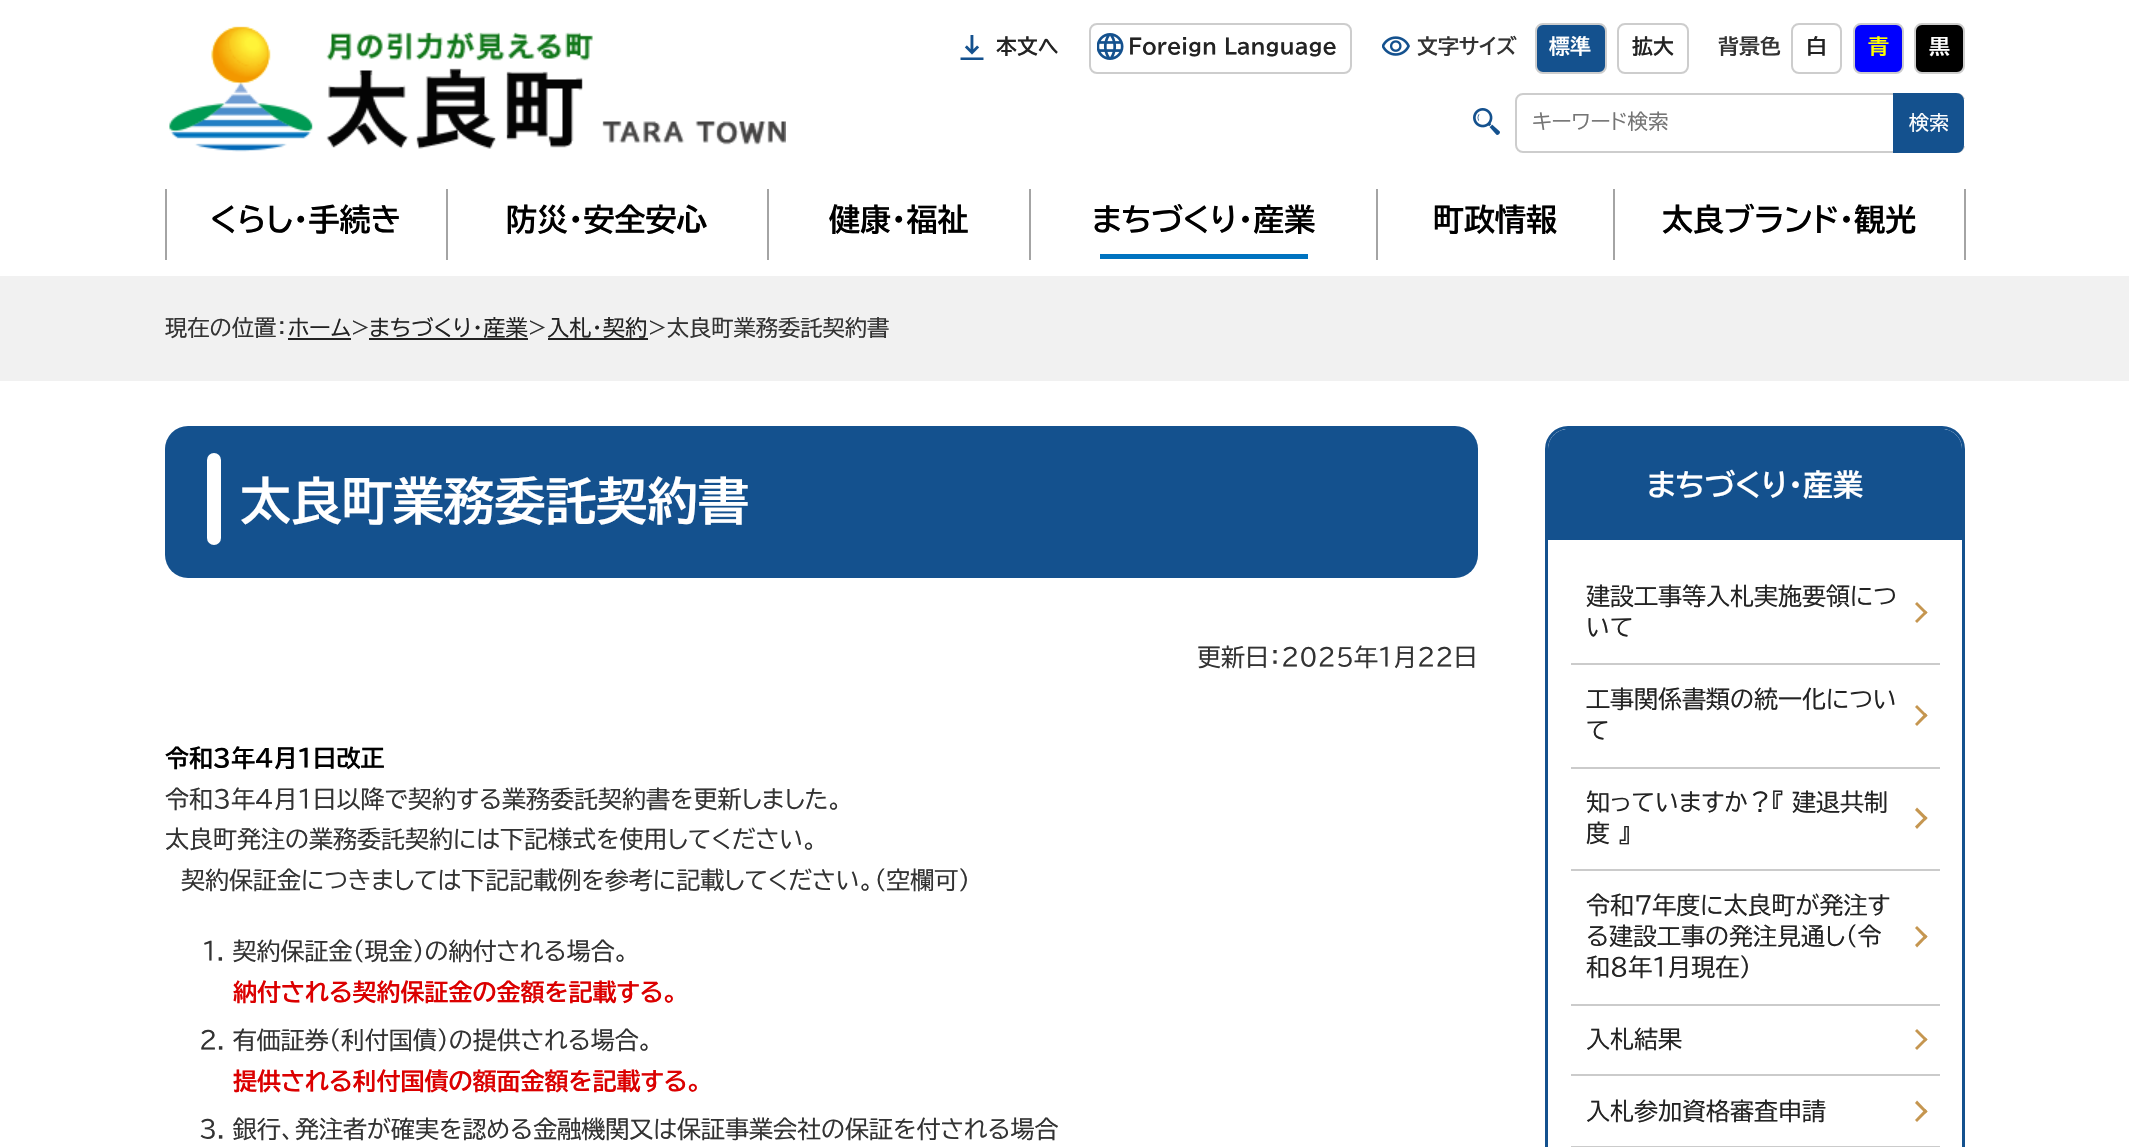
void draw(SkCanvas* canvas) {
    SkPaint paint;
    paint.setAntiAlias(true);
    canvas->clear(0xFFFFFFFF);
    canvas->drawImageRect(SkImages::DeferredFromEncodedData(SkData::MakeFromFileName("img1.png")), SkRect::MakeXYWH(169, 26, 617, 126), SkSamplingOptions());
    canvas->drawImageRect(SkImages::DeferredFromEncodedData(SkData::MakeFromFileName("img2.png")), SkRect::MakeXYWH(960, 35, 24, 25), SkSamplingOptions());
    SkFont font1(fontMgr->matchFamilyStyle("BIZ UDPGothic", SkFontStyle::Bold()), 20.9f);
    font1.setSubpixel(true);
    paint.setColor(0xFF232323);
    canvas->drawString("本文へ", 996, 54, font1, paint);
    paint.setStyle(SkPaint::kStroke_Style);
    paint.setStrokeWidth(2);
    paint.setColor(0xFFCDCDCD);
    canvas->drawRoundRect(SkRect::MakeXYWH(1090, 24, 261, 49), 7, 7, paint);
    canvas->drawImageRect(SkImages::DeferredFromEncodedData(SkData::MakeFromFileName("img3.png")), SkRect::MakeXYWH(1097, 33, 27, 27), SkSamplingOptions());
    paint.setStyle(SkPaint::kFill_Style);
    paint.setColor(0xFF232323);
    canvas->drawString("Foreign Language", 1128, 54, font1, paint);
    canvas->drawImageRect(SkImages::DeferredFromEncodedData(SkData::MakeFromFileName("img4.png")), SkRect::MakeXYWH(1382, 36, 28, 20), SkSamplingOptions());
    paint.setColor(0xFF333333);
    canvas->drawString("文字サイズ", 1417, 54, font1, paint);
    paint.setColor(0xFF14518E);
    canvas->drawRoundRect(SkRect::MakeXYWH(1536, 24, 70, 49), 7, 7, paint);
    paint.setStyle(SkPaint::kStroke_Style);
    paint.setColor(0xFFCDCDCD);
    canvas->drawRoundRect(SkRect::MakeXYWH(1536, 24, 70, 49), 7, 7, paint);
    paint.setStyle(SkPaint::kFill_Style);
    paint.setColor(0xFFFFFFFF);
    canvas->drawString("標準", 1549, 54, font1, paint);
    paint.setStyle(SkPaint::kStroke_Style);
    paint.setColor(0xFFCDCDCD);
    canvas->drawRoundRect(SkRect::MakeXYWH(1618, 24, 70, 49), 7, 7, paint);
    paint.setStyle(SkPaint::kFill_Style);
    paint.setColor(0xFF232323);
    canvas->drawString("拡大", 1632, 54, font1, paint);
    paint.setColor(0xFF333333);
    canvas->drawString("背景色", 1718, 54, font1, paint);
    paint.setStyle(SkPaint::kStroke_Style);
    paint.setColor(0xFFCDCDCD);
    canvas->drawRoundRect(SkRect::MakeXYWH(1792, 24, 49, 49), 7, 7, paint);
    paint.setStyle(SkPaint::kFill_Style);
    paint.setColor(0xFF232323);
    canvas->drawString("白", 1806, 54, font1, paint);
    paint.setColor(0xFF0000FF);
    canvas->drawRoundRect(SkRect::MakeXYWH(1854, 24, 49, 49), 7, 7, paint);
    paint.setStyle(SkPaint::kStroke_Style);
    paint.setColor(0xFFCDCDCD);
    canvas->drawRoundRect(SkRect::MakeXYWH(1854, 24, 49, 49), 7, 7, paint);
    paint.setStyle(SkPaint::kFill_Style);
    paint.setColor(0xFFFFFF00);
    canvas->drawString("青", 1868, 54, font1, paint);
    paint.setColor(0xFF000000);
    canvas->drawRoundRect(SkRect::MakeXYWH(1915, 24, 49, 49), 7, 7, paint);
    paint.setStyle(SkPaint::kStroke_Style);
    paint.setColor(0xFFCDCDCD);
    canvas->drawRoundRect(SkRect::MakeXYWH(1915, 24, 49, 49), 7, 7, paint);
    paint.setStyle(SkPaint::kFill_Style);
    paint.setColor(0xFFFFFFFF);
    canvas->drawString("黒", 1929, 54, font1, paint);
    canvas->drawImageRect(SkImages::DeferredFromEncodedData(SkData::MakeFromFileName("img5.png")), SkRect::MakeXYWH(1473, 108, 27, 27), SkSamplingOptions());
    paint.setStyle(SkPaint::kStroke_Style);
    paint.setColor(0xFFCDCDCD);
    canvas->drawRoundRect(SkRect::MakeXYWH(1516, 94, 448, 58), 7, 7, paint);
    paint.setStyle(SkPaint::kFill_Style);
    paint.setColor(0xFFFFFFFF);
    canvas->drawRect(SkRect::MakeXYWH(1962, 99, 3, 47), paint);
    SkFont font2(fontMgr->matchFamilyStyle("BIZ UDPGothic", SkFontStyle::Normal()), 20.5f);
    font2.setSubpixel(true);
    paint.setColor(0xFF757575);
    canvas->drawString("キーワード検索", 1532, 129, font2, paint);
    paint.setColor(0xFF14518E);
    canvas->drawPath(SkPathBuilder().moveTo(1893, 93).lineTo(1956, 93).cubicTo(1960.5f, 93, 1964, 96.5f, 1964, 101).lineTo(1964, 145).cubicTo(1964, 149.5f, 1960.5f, 153, 1956, 153).lineTo(1893, 153).close().detach(), paint);
    SkFont font3(fontMgr->matchFamilyStyle("BIZ UDPGothic", SkFontStyle::Normal()), 20);
    font3.setSubpixel(true);
    paint.setColor(0xFFFFFFFF);
    canvas->drawString("検索", 1909, 130, font3, paint);
    paint.setColor(0xFFA4A4A4);
    canvas->drawRect(SkRect::MakeXYWH(165, 189, 2, 71), paint);
    SkFont font4(fontMgr->matchFamilyStyle("BIZ UDPGothic", SkFontStyle::Bold()), 31);
    font4.setSubpixel(true);
    paint.setColor(0xFF000000);
    canvas->drawString("くらし・手続き", 210, 231, font4, paint);
    paint.setColor(0xFFA4A4A4);
    canvas->drawRect(SkRect::MakeXYWH(446, 189, 2, 71), paint);
    paint.setColor(0xFF000000);
    canvas->drawString("防災・安全安心", 506, 231, font4, paint);
    paint.setColor(0xFFA4A4A4);
    canvas->drawRect(SkRect::MakeXYWH(767, 189, 2, 71), paint);
    paint.setColor(0xFF000000);
    canvas->drawString("健康・福祉", 829, 231, font4, paint);
    paint.setColor(0xFFA4A4A4);
    canvas->drawRect(SkRect::MakeXYWH(1029, 189, 2, 71), paint);
    paint.setColor(0xFF000000);
    canvas->drawString("まちづくり・産業", 1092, 231, font4, paint);
    paint.setColor(0xFF0073C0);
    canvas->drawRect(SkRect::MakeXYWH(1100, 254, 208, 5), paint);
    paint.setColor(0xFFA4A4A4);
    canvas->drawRect(SkRect::MakeXYWH(1376, 189, 2, 71), paint);
    paint.setColor(0xFF000000);
    canvas->drawString("町政情報", 1433, 231, font4, paint);
    paint.setColor(0xFFA4A4A4);
    canvas->drawRect(SkRect::MakeXYWH(1613, 189, 2, 71), paint);
    paint.setColor(0xFF000000);
    canvas->drawString("太良ブランド・観光", 1662, 231, font4, paint);
    paint.setColor(0xFFA4A4A4);
    canvas->drawRect(SkRect::MakeXYWH(1964, 189, 2, 71), paint);
    paint.setColor(0xFFF1F1F1);
    canvas->drawRect(SkRect::MakeXYWH(0, 276, 2129, 105), paint);
    SkFont font5(fontMgr->matchFamilyStyle("BIZ UDPGothic", SkFontStyle::Normal()), 22.25f);
    font5.setSubpixel(true);
    paint.setColor(0xFF333333);
    canvas->drawString("現在の位置：", 165, 336, font5, paint);
    paint.setColor(0xFF232323);
    canvas->drawString("ホーム", 288, 336, font5, paint);
    canvas->drawRect(SkRect::MakeXYWH(288, 338, 63, 2), paint);
    paint.setColor(0xFF333333);
    canvas->drawString(">", 351, 336, font5, paint);
    paint.setColor(0xFF232323);
    canvas->drawRect(SkRect::MakeXYWH(369, 338, 159, 2), paint);
    canvas->drawString("まちづくり・産業", 369, 336, font5, paint);
    paint.setColor(0xFF333333);
    canvas->drawString(">", 528, 336, font5, paint);
    paint.setColor(0xFF232323);
    canvas->drawRect(SkRect::MakeXYWH(548, 338, 100, 2), paint);
    canvas->drawString("入札・契約", 547, 336, font5, paint);
    paint.setColor(0xFF333333);
    canvas->drawString(">太良町業務委託契約書", 648, 336, font5, paint);
    paint.setColor(0xFF14518E);
    canvas->drawRoundRect(SkRect::MakeXYWH(165, 426, 1313, 152), 23, 23, paint);
    paint.setColor(0xFFFFFFFF);
    canvas->drawRoundRect(SkRect::MakeXYWH(207, 453, 14, 92), 7, 7, paint);
    SkFont font6(fontMgr->matchFamilyStyle("BIZ UDPGothic", SkFontStyle::Bold()), 50.9f);
    font6.setSubpixel(true);
    canvas->drawString("太良町業務委託契約書", 240, 520, font6, paint);
    SkFont font7(fontMgr->matchFamilyStyle("BIZ UDPGothic", SkFontStyle::Normal()), 24);
    font7.setSubpixel(true);
    paint.setColor(0xFF333333);
    canvas->drawString("更新日：2025年1月22日", 1197, 666, font7, paint);
    SkFont font8(fontMgr->matchFamilyStyle("BIZ UDPGothic", SkFontStyle::Bold()), 24);
    font8.setSubpixel(true);
    paint.setColor(0xFF000000);
    canvas->drawString("令和3年4月1日改正", 165, 767, font8, paint);
    paint.setColor(0xFF333333);
    canvas->drawString("令和3年4月1日以降で契約する業務委託契約書を更新しました。", 165, 808, font7, paint);
    canvas->drawString("太良町発注の業務委託契約には下記様式を使用してください。", 165, 848, font7, paint);
    canvas->drawString("契約保証金につきましては下記記載例を参考に記載してください。（空欄可）", 181, 889, font7, paint);
    canvas->drawString("1. 契約保証金（現金）の納付される場合。", 202, 960, font7, paint);
    paint.setColor(0xFFDB0000);
    canvas->drawString("納付される契約保証金の金額を記載する。", 233, 1001, font8, paint);
    paint.setColor(0xFF333333);
    canvas->drawString("2. 有価証券（利付国債）の提供される場合。", 199, 1049, font7, paint);
    paint.setColor(0xFFDB0000);
    canvas->drawString("提供される利付国債の額面金額を記載する。", 233, 1090, font8, paint);
    paint.setColor(0xFF333333);
    canvas->drawString("3. 銀行、発注者が確実を認める金融機関又は保証事業会社の保証を付される場合", 199, 1138, font7, paint);
    paint.setStyle(SkPaint::kStroke_Style);
    paint.setStrokeWidth(3);
    paint.setColor(0xFF14518E);
    canvas->drawRoundRect(SkRect::MakeXYWH(1546.5f, 427.5f, 417, 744), 21.5f, 21.5f, paint);
    paint.setStyle(SkPaint::kFill_Style);
    canvas->drawPath(SkPathBuilder().moveTo(1568, 429).lineTo(1942, 429).cubicTo(1953, 429, 1962, 438, 1962, 449).lineTo(1962, 540).lineTo(1548, 540).lineTo(1548, 449).cubicTo(1548, 438, 1557, 429, 1568, 429).close().detach(), paint);
    SkFont font9(fontMgr->matchFamilyStyle("BIZ UDPGothic", SkFontStyle::Bold()), 30);
    font9.setSubpixel(true);
    paint.setColor(0xFFFFFFFF);
    canvas->drawString("まちづくり・産業", 1647, 496, font9, paint);
    paint.setColor(0xFFCBCBCB);
    canvas->drawRect(SkRect::MakeXYWH(1571, 663, 369, 2), paint);
    paint.setColor(0xFF232323);
    canvas->drawString("建設工事等入札実施要領につ", 1586, 605, font7, paint);
    paint.setColor(0xFFC59650);
    canvas->drawPath(SkPathBuilder().moveTo(1917, 602).lineTo(1927.5f, 612.5f).lineTo(1925.5f, 614.5f).lineTo(1915, 604).close().detach(), paint);
    canvas->drawPath(SkPathBuilder().moveTo(1925.5f, 610.5f).lineTo(1927.5f, 612.5f).lineTo(1917, 623).lineTo(1915, 621).close().detach(), paint);
    paint.setColor(0xFF232323);
    canvas->drawString("いて", 1586, 636, font7, paint);
    paint.setColor(0xFFCBCBCB);
    canvas->drawRect(SkRect::MakeXYWH(1571, 767, 369, 2), paint);
    paint.setColor(0xFF232323);
    canvas->drawString("工事関係書類の統一化につい", 1586, 708, font7, paint);
    paint.setColor(0xFFC59650);
    canvas->drawPath(SkPathBuilder().moveTo(1917, 705).lineTo(1927.5f, 715.5f).lineTo(1925.5f, 717.5f).lineTo(1915, 707).close().detach(), paint);
    canvas->drawPath(SkPathBuilder().moveTo(1925.5f, 713).lineTo(1927.5f, 715.5f).lineTo(1917, 726).lineTo(1915, 724).close().detach(), paint);
    paint.setColor(0xFF232323);
    canvas->drawString("て", 1586, 739, font7, paint);
    paint.setColor(0xFFCBCBCB);
    canvas->drawRect(SkRect::MakeXYWH(1571, 869, 369, 2), paint);
    paint.setColor(0xFF232323);
    canvas->drawString("知っていますか？『 建退共制", 1586, 811, font7, paint);
    paint.setColor(0xFFC59650);
    canvas->drawPath(SkPathBuilder().moveTo(1917, 807.5f).lineTo(1927.5f, 818).lineTo(1925.5f, 820.5f).lineTo(1915, 810).close().detach(), paint);
    canvas->drawPath(SkPathBuilder().moveTo(1925.5f, 816).lineTo(1927.5f, 818).lineTo(1917, 829).lineTo(1915, 826.5f).close().detach(), paint);
    paint.setColor(0xFF232323);
    canvas->drawString("度 』", 1586, 842, font7, paint);
    paint.setColor(0xFFCBCBCB);
    canvas->drawRect(SkRect::MakeXYWH(1571, 1004, 369, 2), paint);
    paint.setColor(0xFF232323);
    canvas->drawString("令和7年度に太良町が発注す", 1586, 914, font7, paint);
    canvas->drawString("る建設工事の発注見通し（令", 1586, 945, font7, paint);
    paint.setColor(0xFFC59650);
    canvas->drawPath(SkPathBuilder().moveTo(1917, 926).lineTo(1927.5f, 936.5f).lineTo(1925.5f, 939).lineTo(1915, 928).close().detach(), paint);
    canvas->drawPath(SkPathBuilder().moveTo(1925.5f, 934.5f).lineTo(1927.5f, 936.5f).lineTo(1917, 947.5f).lineTo(1915, 945).close().detach(), paint);
    paint.setColor(0xFF232323);
    canvas->drawString("和8年1月現在）", 1586, 976, font7, paint);
    paint.setColor(0xFFCBCBCB);
    canvas->drawRect(SkRect::MakeXYWH(1571, 1074, 369, 2), paint);
    paint.setColor(0xFF232323);
    canvas->drawString("入札結果", 1586, 1048, font7, paint);
    paint.setColor(0xFFC59650);
    canvas->drawPath(SkPathBuilder().moveTo(1917, 1029).lineTo(1927.5f, 1039.5f).lineTo(1925.5f, 1041.5f).lineTo(1915, 1031).close().detach(), paint);
    canvas->drawPath(SkPathBuilder().moveTo(1925.5f, 1037.5f).lineTo(1927.5f, 1039.5f).lineTo(1917, 1050).lineTo(1915, 1048).close().detach(), paint);
    paint.setColor(0xFFCBCBCB);
    canvas->drawRect(SkRect::MakeXYWH(1571, 1146, 369, 1), paint);
    paint.setColor(0xFF232323);
    canvas->drawString("入札参加資格審査申請", 1586, 1120, font7, paint);
    paint.setColor(0xFFC59650);
    canvas->drawPath(SkPathBuilder().moveTo(1917, 1100.5f).lineTo(1927.5f, 1111.5f).lineTo(1925.5f, 1113.5f).lineTo(1915, 1103).close().detach(), paint);
    canvas->drawPath(SkPathBuilder().moveTo(1925.5f, 1109).lineTo(1927.5f, 1111.5f).lineTo(1917, 1122).lineTo(1915, 1120).close().detach(), paint);
}
